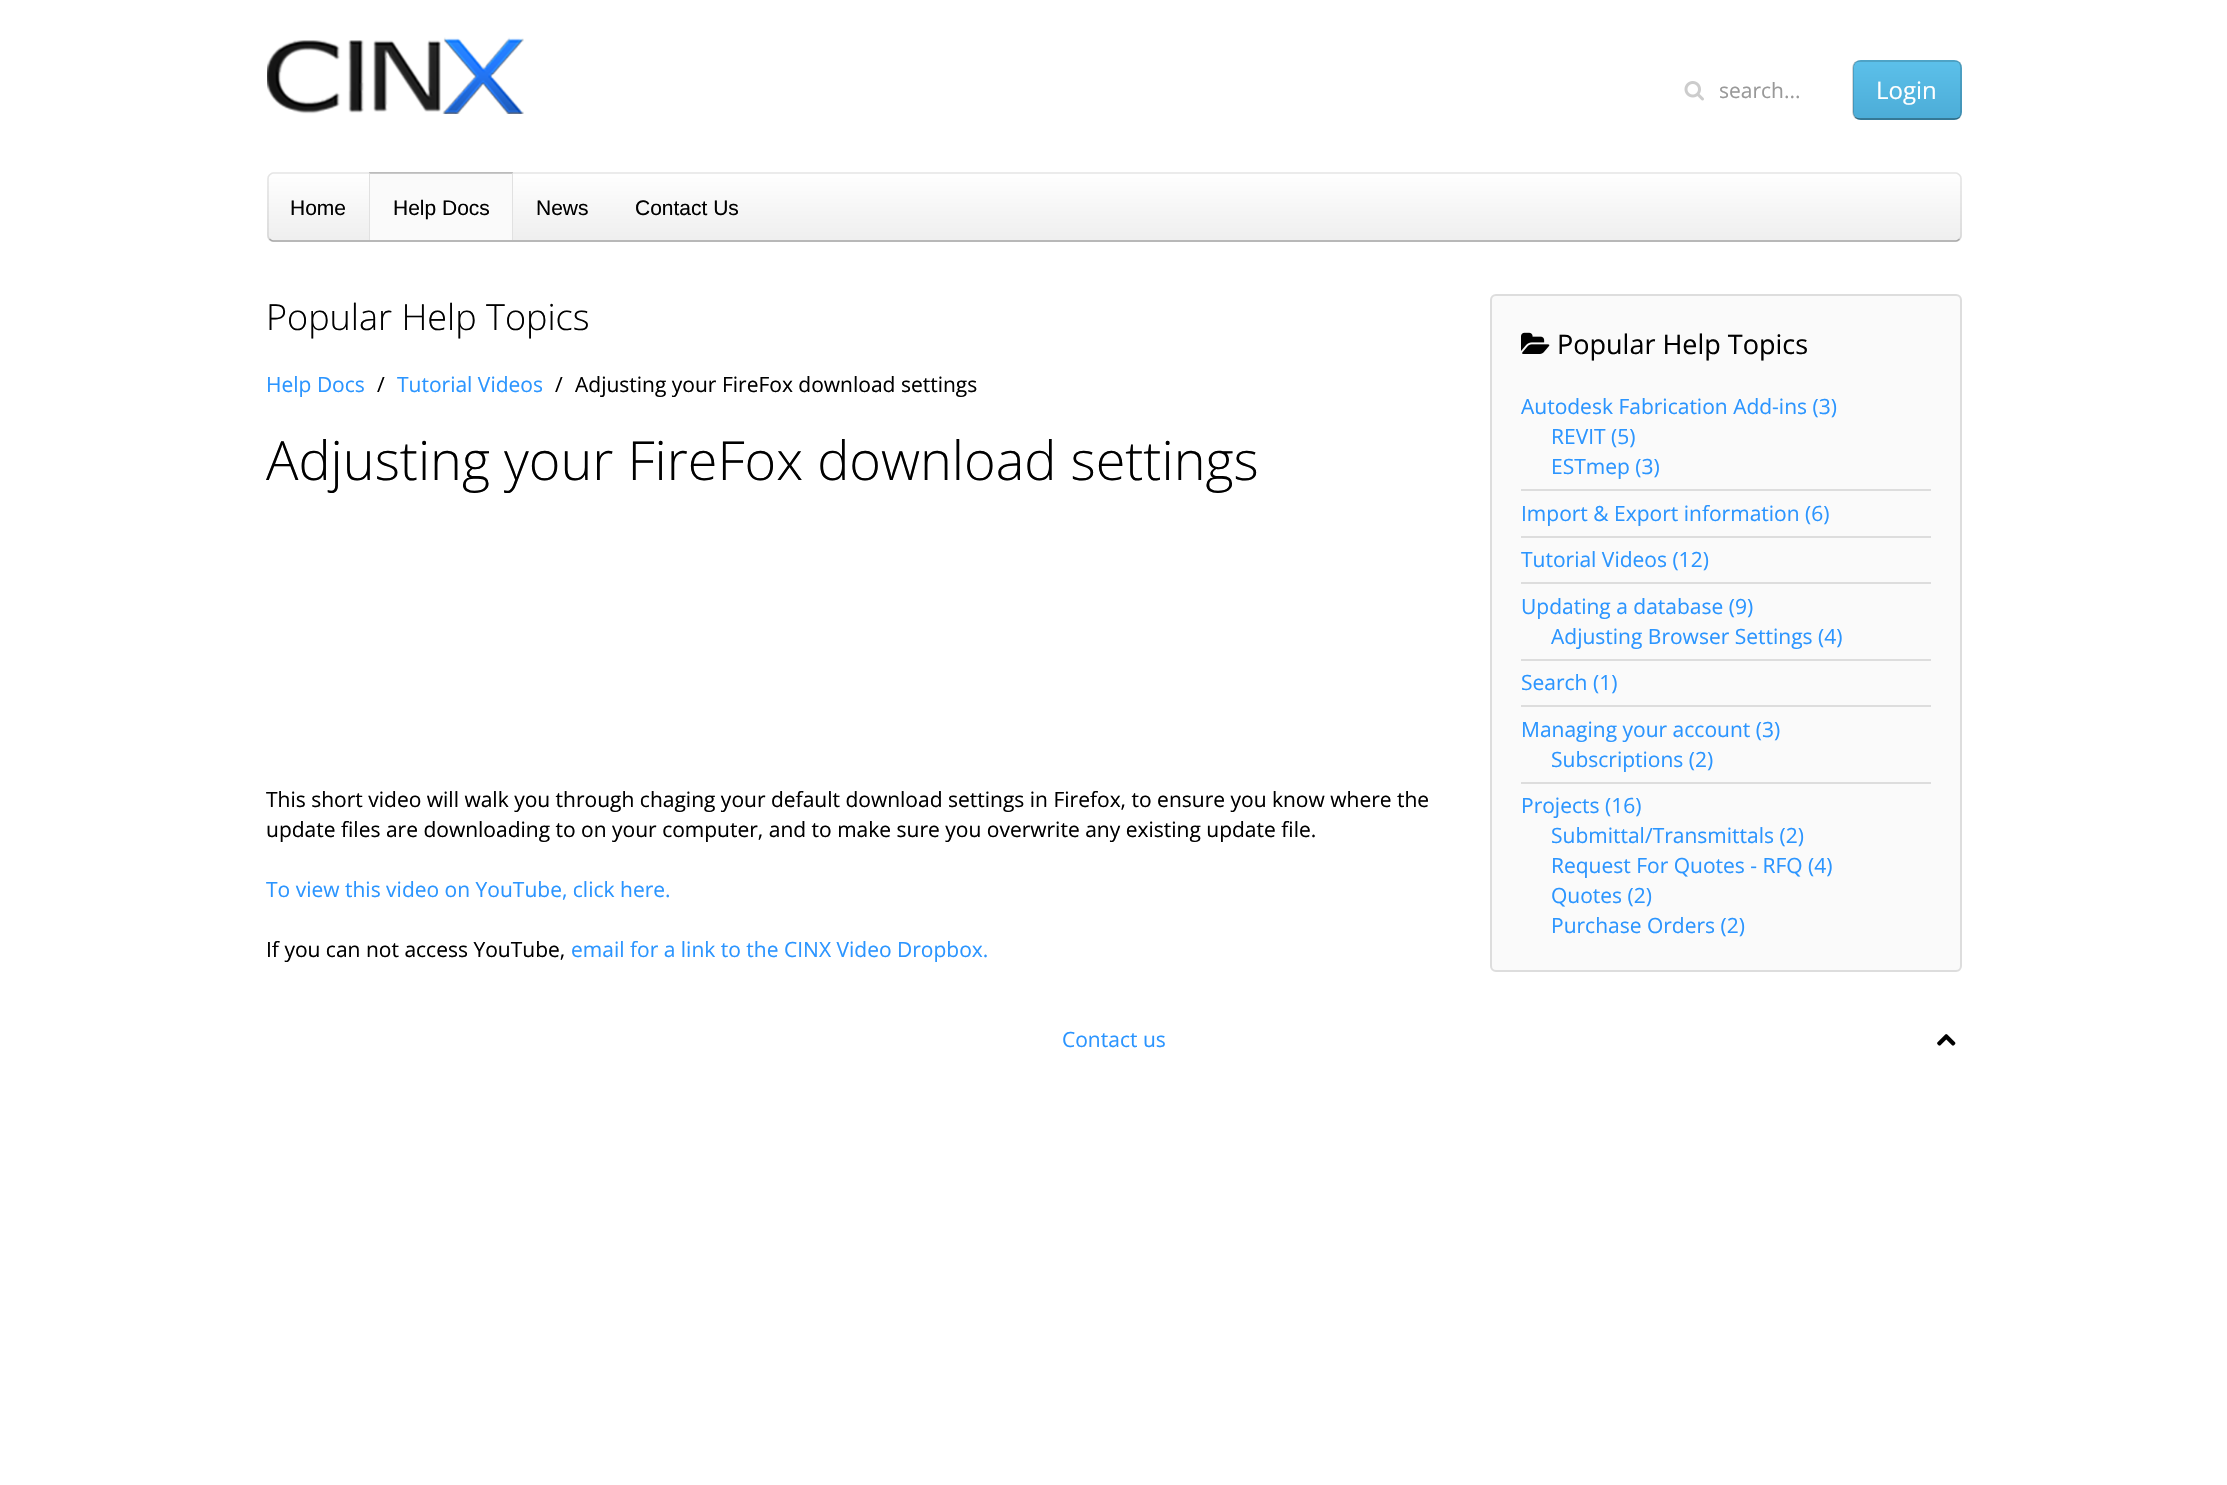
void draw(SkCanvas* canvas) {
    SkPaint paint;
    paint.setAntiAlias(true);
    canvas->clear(0xFFFFFFFF);
    canvas->drawImageRect(SkImages::DeferredFromEncodedData(SkData::MakeFromFileName("img1.png")), SkRect::MakeXYWH(267, 37, 257, 77), SkSamplingOptions());
    canvas->drawImageRect(SkImages::DeferredFromEncodedData(SkData::MakeFromFileName("img2.png")), SkRect::MakeXYWH(1684, 81, 20, 20), SkSamplingOptions());
    SkFont font1(fontMgr->matchFamilyStyle("Open Sans", SkFontStyle::Normal()), 21);
    font1.setSubpixel(true);
    paint.setColor(0xFF999999);
    canvas->drawString("search...", 1719, 98, font1, paint);
    {
        const SkColor colors[] = {0xFF5CC0EA, 0xFF4CACD7};
        const float stops[] = {0, 1};
        const SkPoint ends[] = {{1907, 60}, {1907, 120}};
        paint.setShader(SkGradientShader::MakeLinear(ends, colors, stops, 2, SkTileMode::kClamp));
        paint.setAlpha(255);
    }
    canvas->drawRoundRect(SkRect::MakeXYWH(1853, 60, 109, 60), 8, 8, paint);
    paint.setStyle(SkPaint::kStroke_Style);
    paint.setStrokeWidth(1.5f);
    paint.setShader(nullptr);
    paint.setColor(0x66000000);
    canvas->drawPath(SkPathBuilder().moveTo(1959.5f, 117.5f).cubicTo(1958, 118.5f, 1956.5f, 119, 1954.5f, 119).lineTo(1860, 119).cubicTo(1858, 119, 1856.5f, 118.5f, 1855, 117.5f).detach(), paint);
    paint.setColor(0x33000000);
    canvas->drawPath(SkPathBuilder().moveTo(1855, 117.5f).cubicTo(1854, 116, 1853, 114.5f, 1853, 112.5f).lineTo(1853, 67.5f).cubicTo(1853, 65.5f, 1854, 64, 1855, 62.5f).cubicTo(1856.5f, 61.5f, 1858, 61, 1860, 61).lineTo(1954.5f, 61).cubicTo(1956.5f, 61, 1958, 61.5f, 1959.5f, 62.5f).cubicTo(1960.5f, 64, 1961, 65.5f, 1961, 67.5f).lineTo(1961, 112.5f).cubicTo(1961, 114.5f, 1960.5f, 116, 1959.5f, 117.5f).detach(), paint);
    SkFont font2(fontMgr->matchFamilyStyle("Open Sans", SkFontStyle::Normal()), 24);
    font2.setSubpixel(true);
    paint.setStyle(SkPaint::kFill_Style);
    paint.setColor(0xFFFFFFFF);
    canvas->drawString("Login", 1876, 99, font2, paint);
    {
        const SkColor colors[] = {0xFFFFFFFF, 0xFFEEEEEE};
        const float stops[] = {0, 1};
        const SkPoint ends[] = {{1115, 172}, {1115, 242}};
        paint.setShader(SkGradientShader::MakeLinear(ends, colors, stops, 2, SkTileMode::kClamp));
        paint.setAlpha(255);
    }
    canvas->drawRoundRect(SkRect::MakeXYWH(267, 173, 1695, 69), 6, 6, paint);
    paint.setStyle(SkPaint::kStroke_Style);
    paint.setShader(nullptr);
    paint.setColor(0xFFA7A7A7);
    canvas->drawPath(SkPathBuilder().moveTo(1959.5f, 239).cubicTo(1958.5f, 240, 1957.5f, 241, 1956, 241).lineTo(273, 241).cubicTo(271.5f, 241, 270.5f, 240, 269.5f, 239).detach(), paint);
    paint.setColor(0x1A000000);
    canvas->drawPath(SkPathBuilder().moveTo(269.5f, 239).cubicTo(268.5f, 238, 268, 237, 268, 235.5f).lineTo(268, 178.5f).cubicTo(268, 177, 268.5f, 176, 269.5f, 175).cubicTo(270.5f, 174, 271.5f, 173, 273, 173).lineTo(1956, 173).cubicTo(1957.5f, 173, 1958.5f, 174, 1959.5f, 175).cubicTo(1960.5f, 176, 1961, 177, 1961, 178.5f).lineTo(1961, 235.5f).cubicTo(1961, 237, 1960.5f, 238, 1959.5f, 239).detach(), paint);
    SkFont font3(fontMgr->matchFamilyStyle("Liberation Sans", SkFontStyle::Normal()), 21);
    font3.setSubpixel(true);
    paint.setStyle(SkPaint::kFill_Style);
    paint.setColor(0xFF000000);
    canvas->drawString("Home", 290, 215, font3, paint);
    paint.setColor(0xFFFAFAFA);
    canvas->drawRect(SkRect::MakeXYWH(369, 173, 144, 67), paint);
    paint.setColor(0x33000000);
    canvas->drawPath(SkPathBuilder().moveTo(369, 172).lineTo(513, 172).lineTo(512, 174).lineTo(370, 174).close().detach(), paint);
    paint.setColor(0x1A000000);
    canvas->drawPath(SkPathBuilder().moveTo(513, 172).lineTo(513, 240).lineTo(512, 240).lineTo(512, 174).close().detach(), paint);
    canvas->drawPath(SkPathBuilder().moveTo(369, 240).lineTo(369, 172).lineTo(370, 174).lineTo(370, 240).close().detach(), paint);
    paint.setColor(0xFF000000);
    canvas->drawString("Help Docs", 393, 215, font3, paint);
    canvas->drawString("News", 536, 215, font3, paint);
    canvas->drawString("Contact Us", 635, 215, font3, paint);
    SkFont font4(fontMgr->matchFamilyStyle("Open Sans", SkFontStyle(300, SkFontStyle::kNormal_Width, SkFontStyle::kUpright_Slant)), 36);
    font4.setSubpixel(true);
    canvas->drawString("Popular Help Topics", 266, 330, font4, paint);
    paint.setColor(0xFF2B95FF);
    canvas->drawString("Help Docs", 266, 392, font1, paint);
    paint.setColor(0xFF000000);
    canvas->drawString("/", 377, 392, font1, paint);
    paint.setColor(0xFF2B95FF);
    canvas->drawString("Tutorial Videos", 397, 392, font1, paint);
    paint.setColor(0xFF000000);
    canvas->drawString("/", 555, 392, font1, paint);
    canvas->drawString("Adjusting your FireFox download settings", 575, 392, font1, paint);
    SkFont font5(fontMgr->matchFamilyStyle("Open Sans", SkFontStyle(300, SkFontStyle::kNormal_Width, SkFontStyle::kUpright_Slant)), 54);
    font5.setSubpixel(true);
    canvas->drawString("Adjusting your FireFox download settings", 266, 480, font5, paint);
    canvas->drawString("This short video will walk you through chaging your default download settings in Firefox, to ensure you know where the", 266, 807, font1, paint);
    canvas->drawString("update files are downloading to on your computer, and to make sure you overwrite any existing update file.", 266, 837, font1, paint);
    paint.setColor(0xFF2B95FF);
    canvas->drawString("To view this video on YouTube, click here.", 266, 897, font1, paint);
    paint.setColor(0xFF000000);
    canvas->drawString("If you can not access YouTube,", 266, 957, font1, paint);
    paint.setColor(0xFF2B95FF);
    canvas->drawString("email for a link to the CINX Video Dropbox.", 571, 957, font1, paint);
    paint.setColor(0xFFFAFAFA);
    canvas->drawRoundRect(SkRect::MakeXYWH(1491, 295, 470, 676), 5, 5, paint);
    paint.setStyle(SkPaint::kStroke_Style);
    paint.setStrokeWidth(2);
    paint.setColor(0xFFDDDDDD);
    canvas->drawRoundRect(SkRect::MakeXYWH(1491, 295, 470, 676), 5, 5, paint);
    canvas->drawImageRect(SkImages::DeferredFromEncodedData(SkData::MakeFromFileName("img3.png")), SkRect::MakeXYWH(1521, 332, 29, 22), SkSamplingOptions());
    SkFont font6(fontMgr->matchFamilyStyle("Open Sans", SkFontStyle::Normal()), 27);
    font6.setSubpixel(true);
    paint.setStyle(SkPaint::kFill_Style);
    paint.setColor(0xFF000000);
    canvas->drawString("Popular Help Topics", 1557, 354, font6, paint);
    paint.setColor(0xFF2B95FF);
    canvas->drawString("Autodesk Fabrication Add-ins (3)", 1521, 414, font1, paint);
    canvas->drawString("REVIT (5)", 1551, 444, font1, paint);
    canvas->drawString("ESTmep (3)", 1551, 474, font1, paint);
    paint.setColor(0xFFDDDDDD);
    canvas->drawRect(SkRect::MakeXYWH(1521, 489, 410, 2), paint);
    paint.setColor(0xFF2B95FF);
    canvas->drawString("Import & Export information (6)", 1521, 521, font1, paint);
    paint.setColor(0xFFDDDDDD);
    canvas->drawRect(SkRect::MakeXYWH(1521, 536, 410, 2), paint);
    paint.setColor(0xFF2B95FF);
    canvas->drawString("Tutorial Videos (12)", 1521, 567, font1, paint);
    paint.setColor(0xFFDDDDDD);
    canvas->drawRect(SkRect::MakeXYWH(1521, 582, 410, 2), paint);
    paint.setColor(0xFF2B95FF);
    canvas->drawString("Updating a database (9)", 1521, 614, font1, paint);
    canvas->drawString("Adjusting Browser Settings (4)", 1551, 644, font1, paint);
    paint.setColor(0xFFDDDDDD);
    canvas->drawRect(SkRect::MakeXYWH(1521, 659, 410, 2), paint);
    paint.setColor(0xFF2B95FF);
    canvas->drawString("Search (1)", 1521, 690, font1, paint);
    paint.setColor(0xFFDDDDDD);
    canvas->drawRect(SkRect::MakeXYWH(1521, 705, 410, 2), paint);
    paint.setColor(0xFF2B95FF);
    canvas->drawString("Managing your account (3)", 1521, 737, font1, paint);
    canvas->drawString("Subscriptions (2)", 1551, 767, font1, paint);
    paint.setColor(0xFFDDDDDD);
    canvas->drawRect(SkRect::MakeXYWH(1521, 782, 410, 2), paint);
    paint.setColor(0xFF2B95FF);
    canvas->drawString("Projects (16)", 1521, 813, font1, paint);
    canvas->drawString("Submittal/Transmittals (2)", 1551, 843, font1, paint);
    canvas->drawString("Request For Quotes - RFQ (4)", 1551, 873, font1, paint);
    canvas->drawString("Quotes (2)", 1551, 903, font1, paint);
    canvas->drawString("Purchase Orders (2)", 1551, 933, font1, paint);
    canvas->drawString("Contact us", 1062, 1047, font1, paint);
    canvas->drawImageRect(SkImages::DeferredFromEncodedData(SkData::MakeFromFileName("img4.png")), SkRect::MakeXYWH(1937, 1034, 19, 12), SkSamplingOptions());
}
